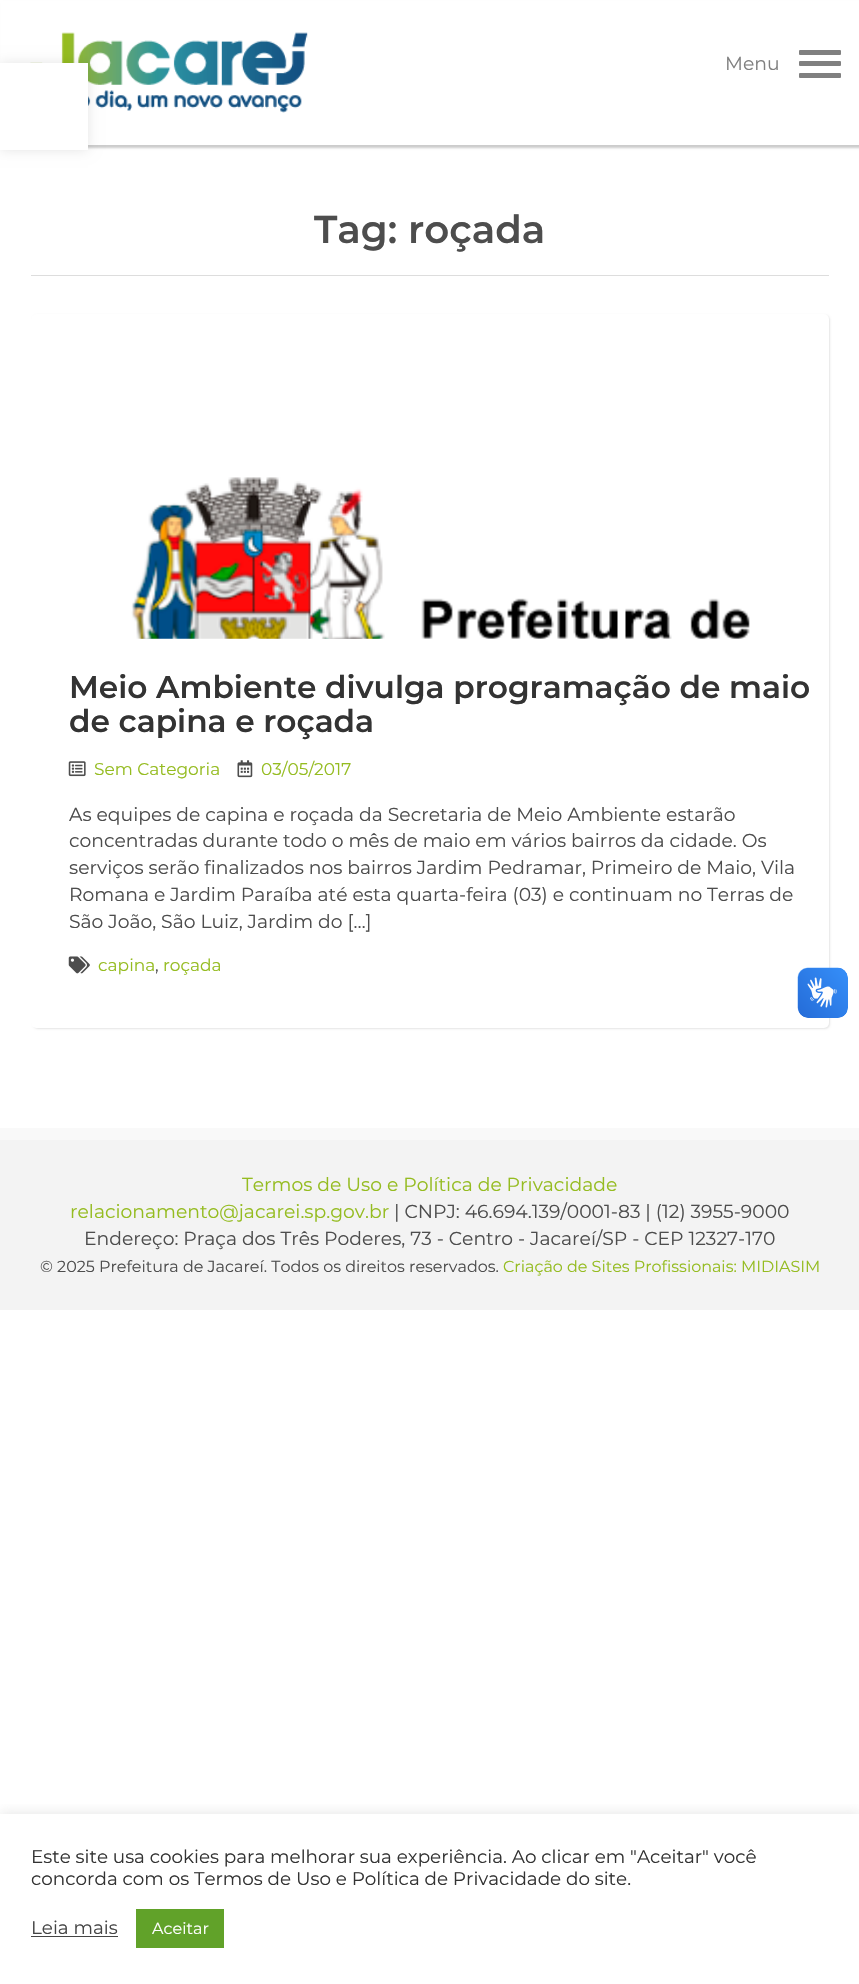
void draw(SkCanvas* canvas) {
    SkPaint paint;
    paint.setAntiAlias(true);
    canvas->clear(0xFFFFFFFF);
    paint.setColor(0xFFF9F9F9);
    canvas->drawRect(SkRect::MakeXYWH(0, 1128, 859, 12), paint);
    paint.setColor(0x33000000);
    paint.setMaskFilter(SkMaskFilter::MakeBlur(kNormal_SkBlurStyle, 1));
    canvas->drawRect(SkRect::MakeXYWH(3, 3, 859, 145), paint);
    paint.setMaskFilter(nullptr);
    paint.setColor(0xFFFFFFFF);
    canvas->drawRect(SkRect::MakeXYWH(1, 1, 858, 144), paint);
    canvas->drawImageRect(SkImages::DeferredFromEncodedData(SkData::MakeFromFileName("img1.png")), SkRect::MakeXYWH(30, 32, 278, 81), SkSamplingOptions());
    paint.setColor(0x1A000000);
    paint.setMaskFilter(SkMaskFilter::MakeBlur(kNormal_SkBlurStyle, 6));
    canvas->drawRect(SkRect::MakeXYWH(0, 63, 88, 87), paint);
    paint.setMaskFilter(nullptr);
    paint.setColor(0xFFFFFFFF);
    canvas->drawRect(SkRect::MakeXYWH(0, 63, 88, 87), paint);
    SkFont font1(fontMgr->matchFamilyStyle("Montserrat", SkFontStyle::Normal()), 18.75f);
    font1.setSubpixel(true);
    paint.setColor(0xFF808080);
    canvas->drawString("Menu", 725, 70, font1, paint);
    canvas->drawRoundRect(SkRect::MakeXYWH(799, 61, 42, 5), 1, 1, paint);
    canvas->drawRoundRect(SkRect::MakeXYWH(799, 50, 42, 5), 1, 1, paint);
    canvas->drawRoundRect(SkRect::MakeXYWH(799, 73, 42, 5), 1, 1, paint);
    paint.setColor(0xFFDDDDDD);
    canvas->drawRect(SkRect::MakeXYWH(31, 275, 798, 1), paint);
    SkFont font2(fontMgr->matchFamilyStyle("Montserrat", SkFontStyle(600, SkFontStyle::kNormal_Width, SkFontStyle::kUpright_Slant)), 38.75f);
    font2.setSubpixel(true);
    paint.setColor(0xFF4D4D4D);
    canvas->drawString("Tag: roçada", 314, 243, font2, paint);
    paint.setColor(0x1A000000);
    paint.setMaskFilter(SkMaskFilter::MakeBlur(kNormal_SkBlurStyle, 1));
    canvas->drawRoundRect(SkRect::MakeXYWH(33, 315, 797, 714), 5, 5, paint);
    paint.setMaskFilter(nullptr);
    paint.setColor(0xFFFFFFFF);
    canvas->drawRoundRect(SkRect::MakeXYWH(31, 314, 798, 714), 5, 5, paint);
    canvas->drawImageRect(SkImages::DeferredFromEncodedData(SkData::MakeFromFileName("img2.png")), SkRect::MakeXYWH(131, 477, 619, 162), SkSamplingOptions());
    SkFont font3(fontMgr->matchFamilyStyle("Montserrat", SkFontStyle(600, SkFontStyle::kNormal_Width, SkFontStyle::kUpright_Slant)), 31.25f);
    font3.setSubpixel(true);
    paint.setColor(0xFF333333);
    canvas->drawString("Meio Ambiente divulga programação de maio", 69, 698, font3, paint);
    canvas->drawString("de capina e roçada", 69, 732, font3, paint);
    canvas->drawImageRect(SkImages::DeferredFromEncodedData(SkData::MakeFromFileName("img3.png")), SkRect::MakeXYWH(68, 761, 18, 16), SkSamplingOptions());
    SkFont font4(fontMgr->matchFamilyStyle("Montserrat", SkFontStyle::Normal()), 17);
    font4.setSubpixel(true);
    paint.setColor(0xFF95BC20);
    canvas->drawString("Sem Categoria", 94, 775, font4, paint);
    canvas->drawImageRect(SkImages::DeferredFromEncodedData(SkData::MakeFromFileName("img4.png")), SkRect::MakeXYWH(237, 760, 16, 18), SkSamplingOptions());
    canvas->drawString("03/05/2017", 261, 775, font4, paint);
    paint.setColor(0xFF4D4D4D);
    canvas->drawString("As equipes de capina e roçada da Secretaria de Meio Ambiente estarão", 69, 821, font1, paint);
    canvas->drawString("concentradas durante todo o mês de maio em vários bairros da cidade. Os", 69, 847, font1, paint);
    canvas->drawString("serviços serão finalizados nos bairros Jardim Pedramar, Primeiro de Maio, Vila", 69, 874, font1, paint);
    canvas->drawString("Romana e Jardim Paraíba até esta quarta-feira (03) e continuam no Terras de", 69, 901, font1, paint);
    canvas->drawString("São João, São Luiz, Jardim do […]", 69, 928, font1, paint);
    canvas->drawImageRect(SkImages::DeferredFromEncodedData(SkData::MakeFromFileName("img5.png")), SkRect::MakeXYWH(68, 956, 22, 18), SkSamplingOptions());
    paint.setColor(0xFF95BC20);
    canvas->drawString("capina", 98, 971, font4, paint);
    paint.setColor(0xFF4D4D4D);
    canvas->drawString(",", 155, 971, font4, paint);
    paint.setColor(0xFF95BC20);
    canvas->drawString("roçada", 163, 971, font4, paint);
    canvas->drawImageRect(SkImages::DeferredFromEncodedData(SkData::MakeFromFileName("img6.png")), SkRect::MakeXYWH(797, 967, 51, 51), SkSamplingOptions());
    canvas->drawImageRect(SkImages::DeferredFromEncodedData(SkData::MakeFromFileName("img7.png")), SkRect::MakeXYWH(798, 968, 50, 50), SkSamplingOptions());
    paint.setColor(0xFFF3F3F3);
    canvas->drawRect(SkRect::MakeXYWH(0, 1140, 859, 170), paint);
    paint.setColor(0xFF95BC20);
    canvas->drawString("Termos de Uso e Política de Privacidade", 242, 1191, font1, paint);
    canvas->drawString("relacionamento@jacarei.sp.gov.br", 70, 1218, font1, paint);
    paint.setColor(0xFF4D4D4D);
    canvas->drawString("| CNPJ: 46.694.139/0001-83 | (12) 3955-9000", 394, 1218, font1, paint);
    canvas->drawString("Endereço: Praça dos Três Poderes, 73 - Centro - Jacareí/SP - CEP 12327-170", 84, 1245, font1, paint);
    SkFont font5(fontMgr->matchFamilyStyle("Montserrat", SkFontStyle::Normal()), 15.95f);
    font5.setSubpixel(true);
    canvas->drawString("© 2025 Prefeitura de Jacareí. Todos os direitos reservados.", 40, 1272, font5, paint);
    paint.setColor(0xFF95BC20);
    canvas->drawString("Criação de Sites Profissionais: MIDIASIM", 503, 1272, font5, paint);
    canvas->save();
    canvas->clipRect(SkRect::MakeXYWH(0, 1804, 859, 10));
    paint.setColor(0x4DACABAB);
    paint.setMaskFilter(SkMaskFilter::MakeBlur(kNormal_SkBlurStyle, 6));
    canvas->drawRect(SkRect::MakeXYWH(0, 1813, 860, 171), paint);
    paint.setMaskFilter(nullptr);
    canvas->restore();
    SkFont font6(fontMgr->matchFamilyStyle("Montserrat", SkFontStyle::Normal()), 18.35f);
    font6.setSubpixel(true);
    paint.setColor(0xFF333333);
    canvas->drawString("Este site usa cookies para melhorar sua experiência. Ao clicar em \"Aceitar\" você", 31, 1863, font6, paint);
    canvas->drawString("concorda com os Termos de Uso e Política de Privacidade do site.", 31, 1885, font6, paint);
    paint.setColor(0xFF444444);
    canvas->drawString("Leia mais", 31, 1934, font6, paint);
    canvas->drawRect(SkRect::MakeXYWH(31, 1936, 87, 1), paint);
    paint.setColor(0xFF61A229);
    canvas->drawRect(SkRect::MakeXYWH(136, 1909, 88, 39), paint);
    SkFont font7(fontMgr->matchFamilyStyle("Montserrat", SkFontStyle::Normal()), 16);
    font7.setSubpixel(true);
    paint.setColor(0xFFFFFFFF);
    canvas->drawString("Aceitar", 152, 1934, font7, paint);
}
